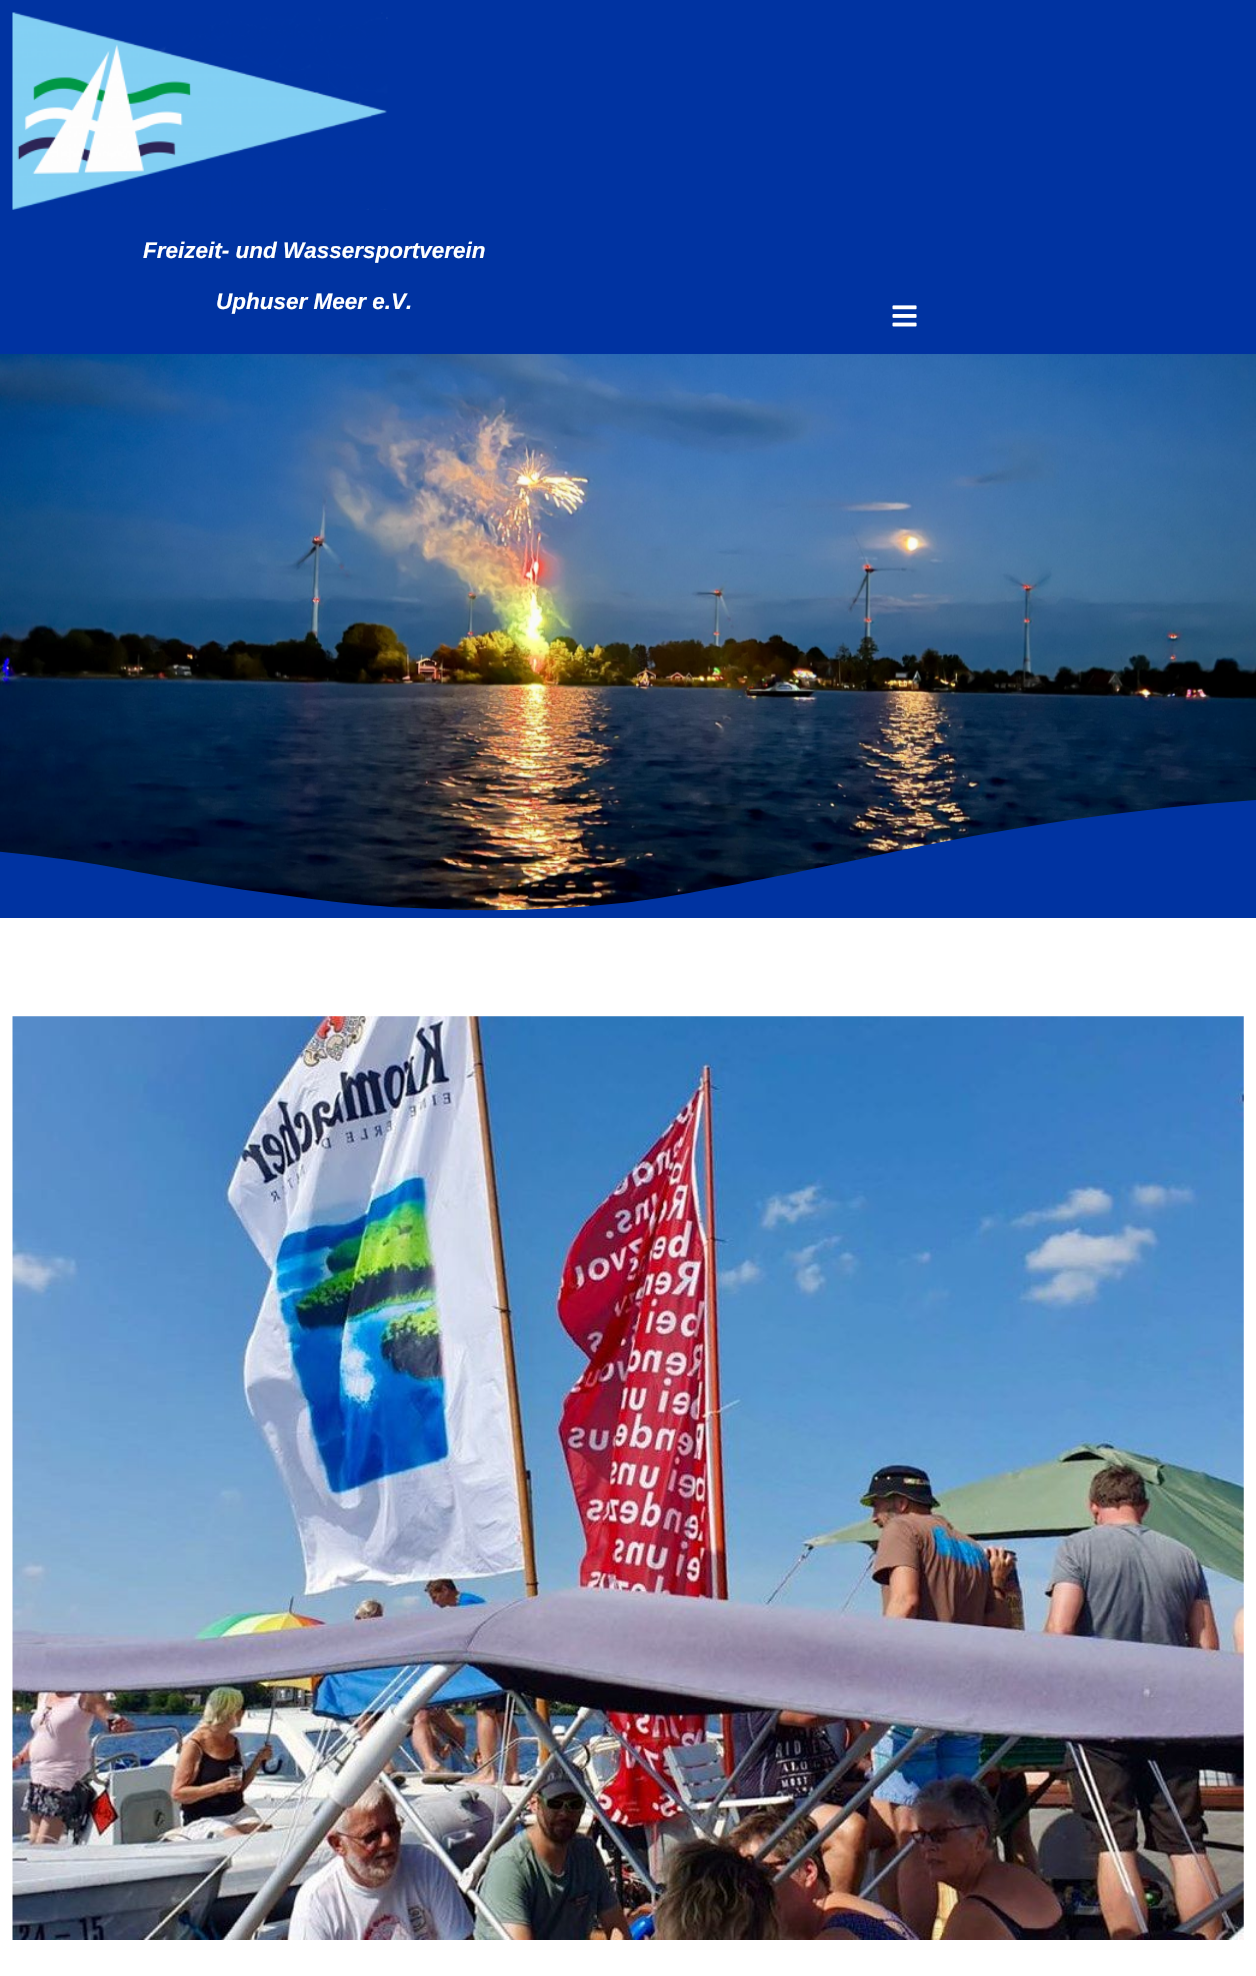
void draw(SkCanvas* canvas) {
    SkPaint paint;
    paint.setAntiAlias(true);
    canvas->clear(0xFFFFFFFF);
    paint.setColor(0xFF0033A1);
    canvas->drawRect(SkRect::MakeXYWH(0, 0, 1256, 354), paint);
    canvas->drawImageRect(SkImages::DeferredFromEncodedData(SkData::MakeFromFileName("img1.png")), SkRect::MakeXYWH(12, 12, 376, 198), SkSamplingOptions());
    SkFont font1(fontMgr->matchFamilyStyle("Liberation Sans", SkFontStyle::BoldItalic()), 22.5f);
    font1.setSubpixel(true);
    paint.setColor(0xFFFFFFFF);
    canvas->drawString("Freizeit- und Wassersportverein", 143, 258, font1, paint);
    canvas->drawString("Uphuser Meer e.V.", 216, 309, font1, paint);
    canvas->drawImageRect(SkImages::DeferredFromEncodedData(SkData::MakeFromFileName("img2.png")), SkRect::MakeXYWH(892, 305, 25, 22), SkSamplingOptions());
    canvas->drawImageRect(SkImages::DeferredFromEncodedData(SkData::MakeFromFileName("img3.png")), SkRect::MakeXYWH(0, 354, 1256, 557), SkSamplingOptions());
    paint.setColor(0xFF0033A1);
    canvas->drawPath(SkPathBuilder().moveTo(440, 909).cubicTo(495, 912, 565, 909, 622, 903).cubicTo(679, 897, 794, 873, 865, 858).cubicTo(1048, 818, 1188, 802, 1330, 796).cubicTo(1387, 793, 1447, 792, 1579, 799).cubicTo(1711, 807, 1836, 831, 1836, 831).lineTo(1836, 918).lineTo(-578, 918).lineTo(-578, 880).cubicTo(-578, 880, -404, 839, -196, 842).cubicTo(-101, 842, 28, 850, 128, 870).cubicTo(179, 880, 254, 892, 320, 900).cubicTo(386, 908, 415, 908, 440, 909).close().detach(), paint);
    canvas->drawImageRect(SkImages::DeferredFromEncodedData(SkData::MakeFromFileName("img4.png")), SkRect::MakeXYWH(12, 1016, 1232, 924), SkSamplingOptions());
}
